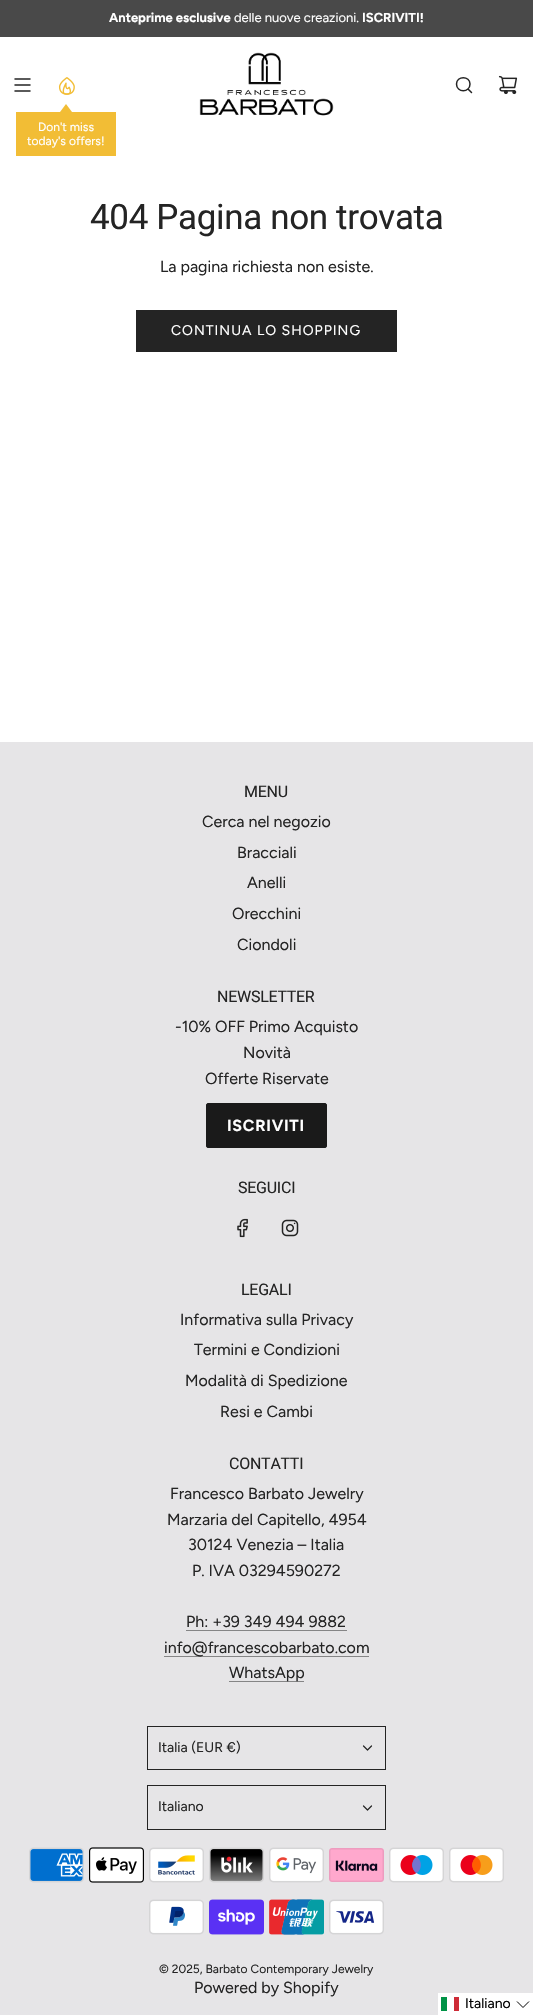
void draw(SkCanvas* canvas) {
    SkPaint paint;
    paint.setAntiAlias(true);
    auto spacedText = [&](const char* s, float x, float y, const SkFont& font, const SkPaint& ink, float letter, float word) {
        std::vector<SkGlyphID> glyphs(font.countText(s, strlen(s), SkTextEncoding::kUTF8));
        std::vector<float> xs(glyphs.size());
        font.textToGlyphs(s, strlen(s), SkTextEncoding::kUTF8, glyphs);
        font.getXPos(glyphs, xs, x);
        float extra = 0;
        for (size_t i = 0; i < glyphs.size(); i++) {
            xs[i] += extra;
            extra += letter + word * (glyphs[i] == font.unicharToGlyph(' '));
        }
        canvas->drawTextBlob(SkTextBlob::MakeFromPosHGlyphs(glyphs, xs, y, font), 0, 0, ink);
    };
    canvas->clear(0xFFFFFFFF);
    paint.setColor(0xFF494949);
    canvas->drawRect(SkRect::MakeXYWH(0, 0, 533, 37), paint);
    SkFont font1(fontMgr->matchFamilyStyle("Figtree", SkFontStyle::Bold()), 13);
    font1.setSubpixel(true);
    paint.setColor(0xFFFFFFFF);
    canvas->drawString("Anteprime esclusive", 109, 22, font1, paint);
    SkFont font2(fontMgr->matchFamilyStyle("Figtree", SkFontStyle::Normal()), 13);
    font2.setSubpixel(true);
    canvas->drawString("delle nuove creazioni.", 234, 22, font2, paint);
    canvas->drawString("ISCRIVITI!", 362, 22, font1, paint);
    canvas->drawImageRect(SkImages::DeferredFromEncodedData(SkData::MakeFromFileName("img1.png")), SkRect::MakeXYWH(199, 52, 135, 64), SkSamplingOptions());
    paint.setStyle(SkPaint::kStroke_Style);
    paint.setStrokeWidth(1.5f);
    paint.setStrokeCap(SkPaint::kRound_Cap);
    paint.setStrokeJoin(SkPaint::kRound_Join);
    paint.setColor(0xFF242424);
    canvas->drawPath(SkPathBuilder().moveTo(468, 89).lineTo(471.5f, 92.5f).moveTo(456.5f, 84).cubicTo(456.5f, 93, 470, 93, 470, 84).cubicTo(470, 75.5f, 456.5f, 75.5f, 456.5f, 84).close().detach(), paint);
    canvas->drawImageRect(SkImages::DeferredFromEncodedData(SkData::MakeFromFileName("img2.png")), SkRect::MakeXYWH(498, 75, 20, 20), SkSamplingOptions());
    canvas->drawPath(SkPathBuilder().moveTo(15, 79).lineTo(30, 79).moveTo(15, 85).lineTo(30, 85).moveTo(15, 91).lineTo(30, 91).detach(), paint);
    canvas->drawImageRect(SkImages::DeferredFromEncodedData(SkData::MakeFromFileName("img3.png")), SkRect::MakeXYWH(58, 77, 17, 18), SkSamplingOptions());
    paint.setStyle(SkPaint::kFill_Style);
    paint.setColor(0xFFF2BD35);
    canvas->drawRect(SkRect::MakeXYWH(16, 112, 100, 44), paint);
    canvas->drawPath(SkPathBuilder().moveTo(72, 112).lineTo(60, 112).lineTo(66, 104).close().detach(), paint);
    SkFont font3(fontMgr->matchFamilyStyle("Figtree", SkFontStyle::Normal()), 12);
    font3.setSubpixel(true);
    paint.setColor(0xFFFFFFFF);
    canvas->drawString("Don't miss", 38, 131, font3, paint);
    canvas->drawString("today's offers!", 27, 145, font3, paint);
    SkFont font4(fontMgr->matchFamilyStyle("Roboto", SkFontStyle::Normal()), 35);
    font4.setSubpixel(true);
    paint.setColor(0xFF242424);
    spacedText("404 Pagina non trovata", 90, 229, font4, paint, -0.35f, 0);
    SkFont font5(fontMgr->matchFamilyStyle("Figtree", SkFontStyle::Normal()), 16);
    font5.setSubpixel(true);
    canvas->drawString("La pagina richiesta non esiste.", 160, 272, font5, paint);
    canvas->drawRect(SkRect::MakeXYWH(136, 310, 261, 42), paint);
    SkFont font6(fontMgr->matchFamilyStyle("Figtree", SkFontStyle::Normal()), 14);
    font6.setSubpixel(true);
    paint.setColor(0xFFFFFFFF);
    spacedText("CONTINUA LO SHOPPING", 171, 335, font6, paint, 1, 0);
    paint.setColor(0xFFE6E5E7);
    canvas->drawRect(SkRect::MakeXYWH(0, 742, 533, 1273), paint);
    SkFont font7(fontMgr->matchFamilyStyle("Roboto", SkFontStyle::Normal()), 16);
    font7.setSubpixel(true);
    paint.setColor(0xFF242424);
    spacedText("MENU", 244, 797, font7, paint, -0.25f, 0);
    canvas->drawString("Cerca nel negozio", 202, 827, font5, paint);
    canvas->drawString("Bracciali", 237, 858, font5, paint);
    canvas->drawString("Anelli", 247, 888, font5, paint);
    canvas->drawString("Orecchini", 232, 919, font5, paint);
    canvas->drawString("Ciondoli", 237, 950, font5, paint);
    spacedText("NEWSLETTER", 217, 1002, font7, paint, -0.25f, 0);
    canvas->drawString("-10% OFF Primo Acquisto", 175, 1032, font5, paint);
    canvas->drawString("Novità", 243, 1058, font5, paint);
    canvas->drawString("Offerte Riservate", 205, 1084, font5, paint);
    paint.setColor(0xFF1A1A1A);
    canvas->drawRoundRect(SkRect::MakeXYWH(206.5f, 1103.5f, 120, 44), 1.5f, 1.5f, paint);
    paint.setStyle(SkPaint::kStroke_Style);
    paint.setStrokeWidth(1);
    paint.setStrokeCap(SkPaint::kButt_Cap);
    paint.setStrokeJoin(SkPaint::kMiter_Join);
    canvas->drawRoundRect(SkRect::MakeXYWH(206.5f, 1103.5f, 120, 44), 1.5f, 1.5f, paint);
    SkFont font8(fontMgr->matchFamilyStyle("Figtree", SkFontStyle::Bold()), 16);
    font8.setSubpixel(true);
    paint.setStyle(SkPaint::kFill_Style);
    paint.setColor(0xFFFFFFFF);
    spacedText("ISCRIVITI", 227, 1131, font8, paint, 0.75f, 0);
    paint.setColor(0xFF242424);
    spacedText("SEGUICI", 238, 1193, font7, paint, -0.25f, 0);
    canvas->drawImageRect(SkImages::DeferredFromEncodedData(SkData::MakeFromFileName("img4.png")), SkRect::MakeXYWH(237, 1218, 11, 20), SkSamplingOptions());
    canvas->drawImageRect(SkImages::DeferredFromEncodedData(SkData::MakeFromFileName("img5.png")), SkRect::MakeXYWH(281, 1219, 18, 18), SkSamplingOptions());
    spacedText("LEGALI", 241, 1295, font7, paint, -0.25f, 0);
    canvas->drawString("Informativa sulla Privacy", 180, 1325, font5, paint);
    canvas->drawString("Termini e Condizioni", 194, 1355, font5, paint);
    canvas->drawString("Modalità di Spedizione", 185, 1386, font5, paint);
    canvas->drawString("Resi e Cambi", 220, 1417, font5, paint);
    spacedText("CONTATTI", 229, 1469, font7, paint, -0.25f, 0);
    canvas->drawString("Francesco Barbato Jewelry", 170, 1499, font5, paint);
    canvas->drawString("Marzaria del Capitello, 4954", 167, 1525, font5, paint);
    canvas->drawString("30124 Venezia – Italia", 188, 1550, font5, paint);
    canvas->drawString("P. IVA 03294590272", 192, 1576, font5, paint);
    canvas->drawString("Ph: +39 349 494 9882", 186, 1627, font5, paint);
    paint.setColor(0xFF858586);
    canvas->drawRect(SkRect::MakeXYWH(186, 1630, 161, 1), paint);
    canvas->drawRect(SkRect::MakeXYWH(164, 1656, 205, 1), paint);
    paint.setColor(0xFF242424);
    canvas->drawString("info@francescobarbato.com", 164, 1653, font5, paint);
    paint.setColor(0xFF858586);
    canvas->drawRect(SkRect::MakeXYWH(229, 1681, 75, 1), paint);
    paint.setColor(0xFF242424);
    canvas->drawString("WhatsApp", 229, 1678, font5, paint);
    paint.setStyle(SkPaint::kStroke_Style);
    canvas->drawRect(SkRect::MakeXYWH(147.5f, 1726.5f, 238, 43), paint);
    paint.setStyle(SkPaint::kFill_Style);
    canvas->drawString("Italia (EUR €)", 158, 1752, font6, paint);
    paint.setStyle(SkPaint::kStroke_Style);
    paint.setStrokeWidth(1.2f);
    paint.setStrokeCap(SkPaint::kRound_Cap);
    paint.setStrokeJoin(SkPaint::kRound_Join);
    canvas->drawPath(SkPathBuilder().moveTo(363.5f, 1746).lineTo(367.5f, 1750).lineTo(371.5f, 1746).detach(), paint);
    paint.setStrokeWidth(1);
    paint.setStrokeCap(SkPaint::kButt_Cap);
    paint.setStrokeJoin(SkPaint::kMiter_Join);
    canvas->drawRect(SkRect::MakeXYWH(147.5f, 1785.5f, 238, 44), paint);
    paint.setStyle(SkPaint::kFill_Style);
    canvas->drawString("Italiano", 158, 1811, font6, paint);
    paint.setStyle(SkPaint::kStroke_Style);
    paint.setStrokeWidth(1.2f);
    paint.setStrokeCap(SkPaint::kRound_Cap);
    paint.setStrokeJoin(SkPaint::kRound_Join);
    canvas->drawPath(SkPathBuilder().moveTo(363.5f, 1806).lineTo(367.5f, 1810).lineTo(371.5f, 1806).detach(), paint);
    canvas->drawImageRect(SkImages::DeferredFromEncodedData(SkData::MakeFromFileName("img6.png")), SkRect::MakeXYWH(29, 1847, 55, 36), SkSamplingOptions());
    canvas->drawImageRect(SkImages::DeferredFromEncodedData(SkData::MakeFromFileName("img7.png")), SkRect::MakeXYWH(89, 1847, 55, 36), SkSamplingOptions());
    canvas->drawImageRect(SkImages::DeferredFromEncodedData(SkData::MakeFromFileName("img8.png")), SkRect::MakeXYWH(149, 1847, 55, 36), SkSamplingOptions());
    canvas->drawImageRect(SkImages::DeferredFromEncodedData(SkData::MakeFromFileName("img9.png")), SkRect::MakeXYWH(209, 1847, 55, 36), SkSamplingOptions());
    canvas->drawImageRect(SkImages::DeferredFromEncodedData(SkData::MakeFromFileName("img10.png")), SkRect::MakeXYWH(269, 1847, 55, 36), SkSamplingOptions());
    canvas->drawImageRect(SkImages::DeferredFromEncodedData(SkData::MakeFromFileName("img11.png")), SkRect::MakeXYWH(329, 1848, 55, 34), SkSamplingOptions());
    canvas->drawImageRect(SkImages::DeferredFromEncodedData(SkData::MakeFromFileName("img12.png")), SkRect::MakeXYWH(389, 1847, 55, 36), SkSamplingOptions());
    canvas->drawImageRect(SkImages::DeferredFromEncodedData(SkData::MakeFromFileName("img13.png")), SkRect::MakeXYWH(449, 1847, 55, 36), SkSamplingOptions());
    canvas->drawImageRect(SkImages::DeferredFromEncodedData(SkData::MakeFromFileName("img14.png")), SkRect::MakeXYWH(149, 1899, 55, 36), SkSamplingOptions());
    canvas->drawImageRect(SkImages::DeferredFromEncodedData(SkData::MakeFromFileName("img15.png")), SkRect::MakeXYWH(209, 1899, 55, 36), SkSamplingOptions());
    canvas->drawImageRect(SkImages::DeferredFromEncodedData(SkData::MakeFromFileName("img16.png")), SkRect::MakeXYWH(269, 1899, 55, 36), SkSamplingOptions());
    canvas->drawImageRect(SkImages::DeferredFromEncodedData(SkData::MakeFromFileName("img17.png")), SkRect::MakeXYWH(329, 1899, 55, 36), SkSamplingOptions());
    paint.setStyle(SkPaint::kFill_Style);
    canvas->drawString("© 2025, Barbato Contemporary Jewelry", 159, 1973, font3, paint);
    canvas->drawString("Powered by Shopify", 194, 1993, font5, paint);
    paint.setColor(0xFFFFFFFF);
    canvas->drawRect(SkRect::MakeXYWH(438, 1993, 95, 22), paint);
    paint.setColor(0xFF009246);
    canvas->drawRect(SkRect::MakeXYWH(441, 1997, 6, 14), paint);
    paint.setColor(0xFFCE2B37);
    canvas->drawRect(SkRect::MakeXYWH(454, 1997, 5, 14), paint);
    paint.setColor(0xFF000000);
    canvas->drawString("Italiano", 465, 2008, font6, paint);
    paint.setStyle(SkPaint::kStroke_Style);
    paint.setStrokeWidth(1);
    paint.setStrokeCap(SkPaint::kButt_Cap);
    paint.setStrokeJoin(SkPaint::kMiter_Join);
    canvas->drawPath(SkPathBuilder().moveTo(517, 2001.5f).lineTo(523, 2007.5f).lineTo(529, 2001.5f).detach(), paint);
}
